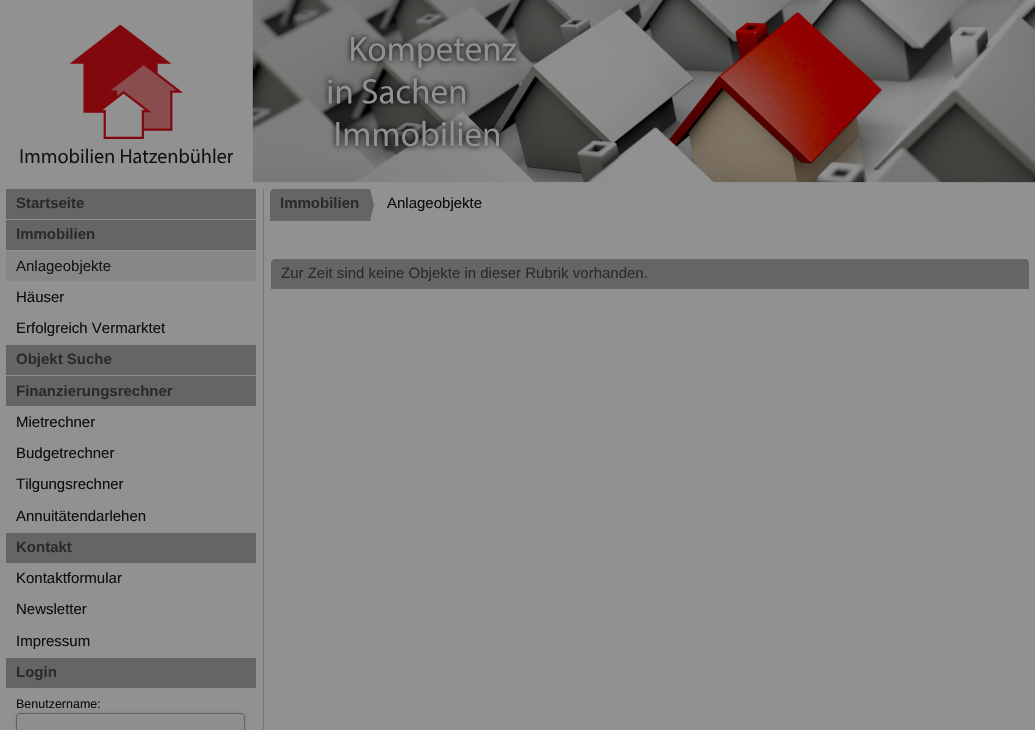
void draw(SkCanvas* canvas) {
    SkPaint paint;
    paint.setAntiAlias(true);
    canvas->clear(0xFF919191);
    canvas->drawImageRect(SkImages::DeferredFromEncodedData(SkData::MakeFromFileName("img1.png")), SkRect::MakeXYWH(20, 0, 1015, 183), SkSamplingOptions());
    paint.setColor(0xFF747474);
    canvas->drawRect(SkRect::MakeXYWH(263, 189, 1, 541), paint);
    paint.setColor(0xFF656567);
    canvas->drawRect(SkRect::MakeXYWH(6, 189, 250, 30), paint);
    SkFont font1(fontMgr->matchFamilyStyle("Liberation Sans", SkFontStyle::Bold()), 15);
    font1.setSubpixel(true);
    paint.setColor(0xFF2B2B2B);
    canvas->drawString("Startseite", 16, 208, font1, paint);
    paint.setColor(0xFF656567);
    canvas->drawRect(SkRect::MakeXYWH(6, 220, 250, 30), paint);
    paint.setColor(0xFF2B2B2B);
    canvas->drawString("Immobilien", 16, 239, font1, paint);
    paint.setColor(0xFF878787);
    canvas->drawRect(SkRect::MakeXYWH(6, 251, 250, 30), paint);
    SkFont font2(fontMgr->matchFamilyStyle("Liberation Sans", SkFontStyle::Normal()), 15);
    font2.setSubpixel(true);
    paint.setColor(0xFF171717);
    canvas->drawString("Anlageobjekte", 16, 271, font2, paint);
    paint.setColor(0xFF0E0E0E);
    canvas->drawString("Häuser", 16, 302, font2, paint);
    canvas->drawString("Erfolgreich Vermarktet", 16, 333, font2, paint);
    paint.setColor(0xFF656567);
    canvas->drawRect(SkRect::MakeXYWH(6, 345, 250, 30), paint);
    paint.setColor(0xFF2B2B2B);
    canvas->drawString("Objekt Suche", 16, 364, font1, paint);
    paint.setColor(0xFF656567);
    canvas->drawRect(SkRect::MakeXYWH(6, 376, 250, 30), paint);
    paint.setColor(0xFF2B2B2B);
    canvas->drawString("Finanzierungsrechner", 16, 396, font1, paint);
    paint.setColor(0xFF0E0E0E);
    canvas->drawString("Mietrechner", 16, 427, font2, paint);
    canvas->drawString("Budgetrechner", 16, 458, font2, paint);
    canvas->drawString("Tilgungsrechner", 16, 489, font2, paint);
    canvas->drawString("Annuitätendarlehen", 16, 521, font2, paint);
    paint.setColor(0xFF656567);
    canvas->drawRect(SkRect::MakeXYWH(6, 533, 250, 30), paint);
    paint.setColor(0xFF2B2B2B);
    canvas->drawString("Kontakt", 16, 552, font1, paint);
    paint.setColor(0xFF0E0E0E);
    canvas->drawString("Kontaktformular", 16, 583, font2, paint);
    canvas->drawString("Newsletter", 16, 614, font2, paint);
    canvas->drawString("Impressum", 16, 646, font2, paint);
    paint.setColor(0xFF656567);
    canvas->drawRect(SkRect::MakeXYWH(6, 658, 250, 30), paint);
    paint.setColor(0xFF2B2B2B);
    canvas->drawString("Login", 16, 677, font1, paint);
    SkFont font3(fontMgr->matchFamilyStyle("Liberation Sans", SkFontStyle::Normal()), 12.5f);
    font3.setSubpixel(true);
    paint.setColor(0xFF0E0E0E);
    canvas->drawString("Benutzername:", 16, 708, font3, paint);
    paint.setColor(0x1A000000);
    paint.setMaskFilter(SkMaskFilter::MakeBlur(kNormal_SkBlurStyle, 2));
    canvas->drawRoundRect(SkRect::MakeXYWH(16, 713, 229, 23), 4, 4, paint);
    paint.setMaskFilter(nullptr);
    paint.setColor(0xFF8F8F8F);
    canvas->drawRoundRect(SkRect::MakeXYWH(16.5f, 713.5f, 228, 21), 3.5f, 3.5f, paint);
    paint.setStyle(SkPaint::kStroke_Style);
    paint.setStrokeWidth(1);
    paint.setColor(0xFF616161);
    canvas->drawRoundRect(SkRect::MakeXYWH(16.5f, 713.5f, 228, 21), 3.5f, 3.5f, paint);
    paint.setStyle(SkPaint::kFill_Style);
    paint.setColor(0xFF656567);
    canvas->drawPath(SkPathBuilder().moveTo(274, 189).lineTo(359, 189).lineTo(359, 221).lineTo(270, 221).lineTo(270, 193).cubicTo(270, 191, 272, 189, 274, 189).close().detach(), paint);
    paint.setColor(0xFF2B2B2B);
    canvas->drawString("Immobilien", 280, 208, font1, paint);
    paint.setColor(0xFF656567);
    canvas->drawPath(SkPathBuilder().moveTo(370, 189).lineTo(374, 205).lineTo(370, 221).lineTo(359, 221).lineTo(359, 189).close().detach(), paint);
    paint.setColor(0xFF0E0E0E);
    canvas->drawString("Anlageobjekte", 387, 208, font2, paint);
    paint.setColor(0xFF656567);
    canvas->drawPath(SkPathBuilder().moveTo(275, 259).lineTo(1025, 259).cubicTo(1027, 259, 1029, 261, 1029, 263).lineTo(1029, 289).lineTo(271, 289).lineTo(271, 263).cubicTo(271, 261, 273, 259, 275, 259).close().detach(), paint);
    paint.setColor(0xFF2B2B2B);
    canvas->drawString("Zur Zeit sind keine Objekte in dieser Rubrik vorhanden.", 281, 278, font2, paint);
}
